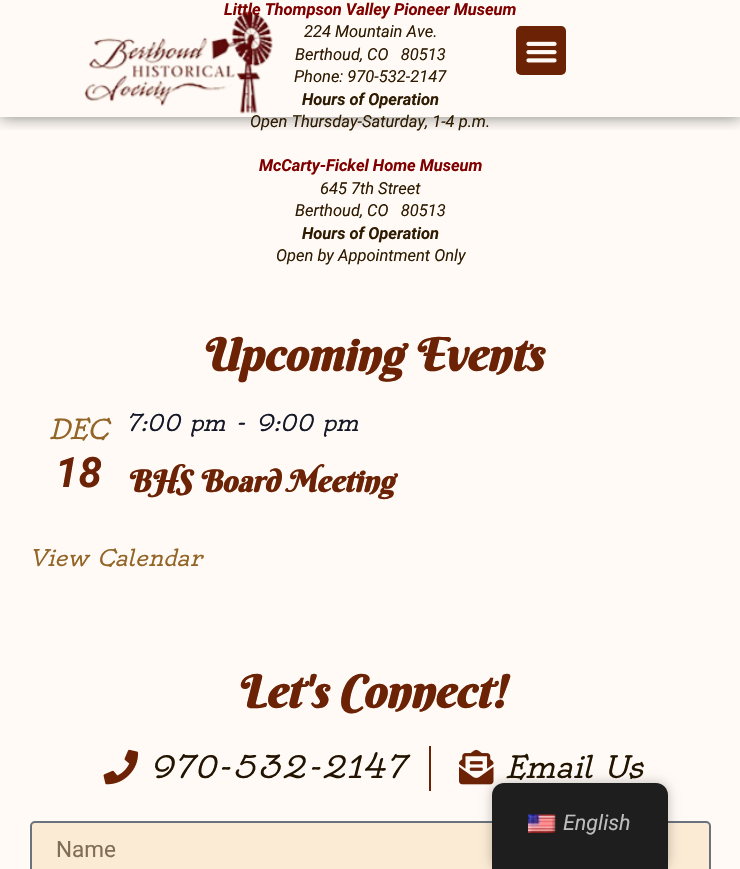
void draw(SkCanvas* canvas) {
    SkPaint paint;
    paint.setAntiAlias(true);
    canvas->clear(0xFFFFFAF5);
    canvas->save();
    canvas->clipRect(SkRect::MakeXYWH(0, 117, 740, 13));
    paint.setColor(0x80000000);
    paint.setMaskFilter(SkMaskFilter::MakeBlur(kNormal_SkBlurStyle, 7.5f));
    canvas->drawRect(SkRect::MakeXYWH(0, 0, 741, 117), paint);
    paint.setMaskFilter(nullptr);
    canvas->restore();
    canvas->drawImageRect(SkImages::DeferredFromEncodedData(SkData::MakeFromFileName("img1.png")), SkRect::MakeXYWH(84, 11, 189, 103), SkSamplingOptions());
    paint.setColor(0xFF6B2205);
    canvas->drawRoundRect(SkRect::MakeXYWH(516, 26, 50, 49), 5, 5, paint);
    canvas->drawImageRect(SkImages::DeferredFromEncodedData(SkData::MakeFromFileName("img2.png")), SkRect::MakeXYWH(526, 41, 31, 22), SkSamplingOptions());
    SkFont font1(fontMgr->matchFamilyStyle("Roboto", SkFontStyle::BoldItalic()), 16.5f);
    font1.setSubpixel(true);
    paint.setColor(0xFF800000);
    canvas->drawString("Little Thompson Valley Pioneer Museum", 224, 15, font1, paint);
    SkFont font2(fontMgr->matchFamilyStyle("Roboto", SkFontStyle::Italic()), 16.5f);
    font2.setSubpixel(true);
    paint.setColor(0xFF2E1B01);
    canvas->drawString("224 Mountain Ave.", 304, 37, font2, paint);
    canvas->drawString("Berthoud, CO   80513", 295, 60, font2, paint);
    canvas->drawString("Phone: 970-532-2147", 294, 82, font2, paint);
    canvas->drawString("Hours of Operation", 302, 105, font1, paint);
    canvas->drawString("Open Thursday-Saturday, 1-4 p.m.", 250, 127, font2, paint);
    paint.setColor(0xFF800000);
    canvas->drawString("McCarty-Fickel Home Museum", 259, 171, font1, paint);
    paint.setColor(0xFF2E1B01);
    canvas->drawString("645 7th Street", 320, 194, font2, paint);
    canvas->drawString("Berthoud, CO   80513", 295, 216, font2, paint);
    canvas->drawString("Hours of Operation", 302, 239, font1, paint);
    canvas->drawString("Open by Appointment Only", 276, 261, font2, paint);
    SkFont font3(fontMgr->matchFamilyStyle("Berkshire Swash", SkFontStyle::BoldItalic()), 45);
    font3.setSubpixel(true);
    paint.setColor(0xFF6B2205);
    canvas->drawString("Upcoming Events", 200, 371, font3, paint);
    SkFont font4(fontMgr->matchFamilyStyle("Oldenburg", SkFontStyle::Italic()), 27);
    font4.setSubpixel(true);
    paint.setColor(0xFF936527);
    canvas->drawString("DEC", 49, 439, font4, paint);
    SkFont font5(fontMgr->matchFamilyStyle("Roboto", SkFontStyle::BoldItalic()), 42);
    font5.setSubpixel(true);
    paint.setColor(0xFF6B2205);
    canvas->drawString("18", 55, 487, font5, paint);
    SkFont font6(fontMgr->matchFamilyStyle("Oldenburg", SkFontStyle::Italic()), 22.5f);
    font6.setSubpixel(true);
    paint.setColor(0xFF141827);
    canvas->drawString("7:00 pm - 9:00 pm", 126, 431, font6, paint);
    SkFont font7(fontMgr->matchFamilyStyle("Berkshire Swash", SkFontStyle::BoldItalic()), 30);
    font7.setSubpixel(true);
    paint.setColor(0xFF6B2205);
    canvas->drawString("BHS Board Meeting", 126, 492, font7, paint);
    paint.setColor(0xFF936527);
    canvas->drawString("View Calendar", 30, 566, font6, paint);
    paint.setColor(0xFF6B2205);
    canvas->drawString("Let's Connect!", 235, 708, font3, paint);
    canvas->drawImageRect(SkImages::DeferredFromEncodedData(SkData::MakeFromFileName("img3.png")), SkRect::MakeXYWH(103, 749, 36, 36), SkSamplingOptions());
    SkFont font8(fontMgr->matchFamilyStyle("Oldenburg", SkFontStyle::Italic()), 30);
    font8.setSubpixel(true);
    paint.setColor(0xFF221401);
    canvas->drawString("970-532-2147", 149, 778, font8, paint);
    paint.setColor(0xFF6B2205);
    canvas->drawRect(SkRect::MakeXYWH(429, 746, 2, 45), paint);
    canvas->drawImageRect(SkImages::DeferredFromEncodedData(SkData::MakeFromFileName("img4.png")), SkRect::MakeXYWH(459, 749, 35, 36), SkSamplingOptions());
    paint.setColor(0xFF221401);
    canvas->drawString("Email Us", 505, 778, font8, paint);
    paint.setColor(0xFFFBEAD4);
    canvas->drawRoundRect(SkRect::MakeXYWH(31, 822, 679, 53), 4, 4, paint);
    paint.setStyle(SkPaint::kStroke_Style);
    paint.setStrokeWidth(2);
    paint.setColor(0xFF69727D);
    canvas->drawRoundRect(SkRect::MakeXYWH(31, 822, 679, 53), 4, 4, paint);
    SkFont font9(fontMgr->matchFamilyStyle("Roboto", SkFontStyle::Normal()), 22.5f);
    font9.setSubpixel(true);
    paint.setStyle(SkPaint::kFill_Style);
    paint.setColor(0xFF806E55);
    canvas->drawString("Name", 56, 857, font9, paint);
    paint.setColor(0x40000000);
    paint.setMaskFilter(SkMaskFilter::MakeBlur(kNormal_SkBlurStyle, 6));
    canvas->drawRoundRect(SkRect::MakeXYWH(492, 783, 176, 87), 12, 12, paint);
    paint.setMaskFilter(nullptr);
    paint.setColor(0xFF1E1E1E);
    canvas->drawPath(SkPathBuilder().moveTo(504, 783).lineTo(656, 783).cubicTo(662.5f, 783, 668, 788.5f, 668, 795).lineTo(668, 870).lineTo(492, 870).lineTo(492, 795).cubicTo(492, 788.5f, 497.5f, 783, 504, 783).close().detach(), paint);
    canvas->drawImageRect(SkImages::DeferredFromEncodedData(SkData::MakeFromFileName("img5.png")), SkRect::MakeXYWH(528, 814, 28, 19), SkSamplingOptions());
    SkFont font10(fontMgr->matchFamilyStyle("Roboto", SkFontStyle::Italic()), 21.5f);
    font10.setSubpixel(true);
    paint.setColor(0xFFBDBDBD);
    canvas->drawString("English", 563, 830, font10, paint);
}
